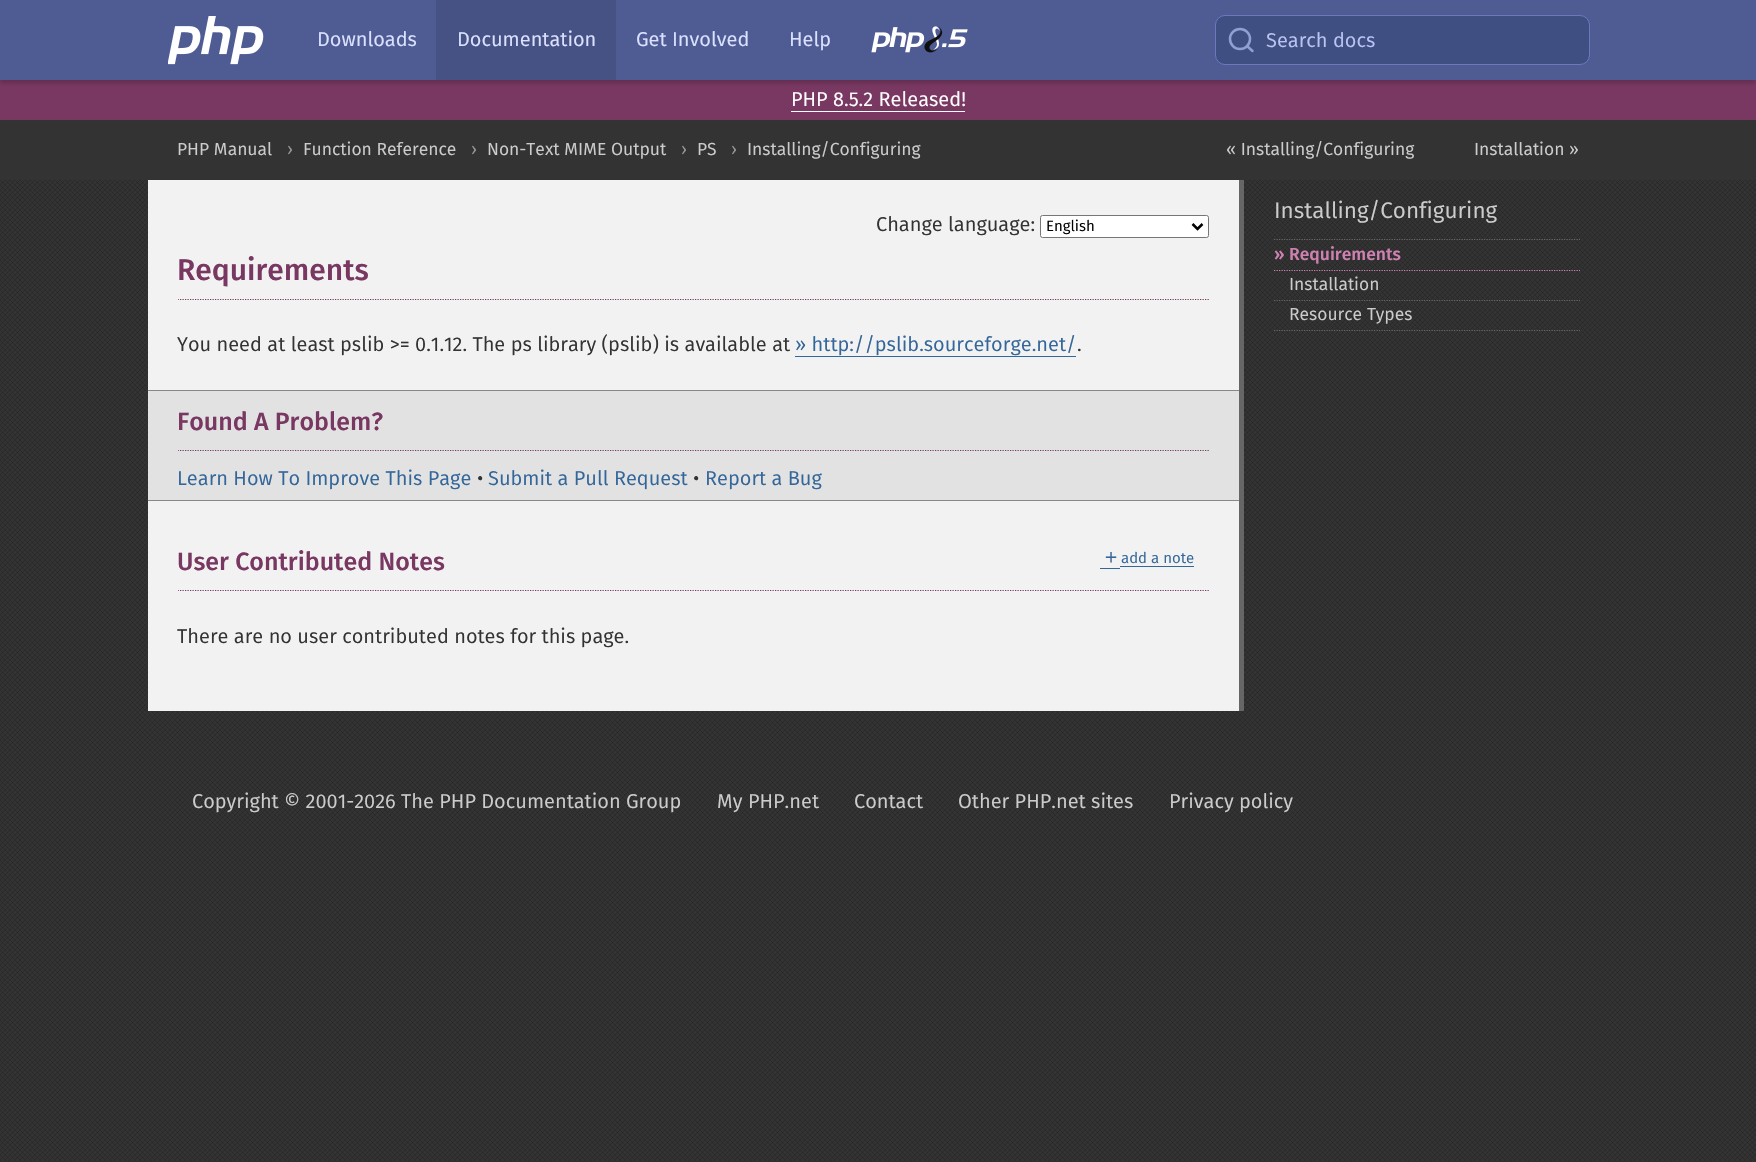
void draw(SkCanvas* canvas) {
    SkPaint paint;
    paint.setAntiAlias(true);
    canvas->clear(0xFF333333);
    canvas->drawImageRect(SkImages::DeferredFromEncodedData(SkData::MakeFromFileName("img1.png")), SkRect::MakeXYWH(0, 180, 1756, 982), SkSamplingOptions());
    paint.setColor(0xFF793862);
    canvas->drawRect(SkRect::MakeXYWH(0, 80, 1756, 40), paint);
    paint.setColor(0x33000000);
    paint.setMaskFilter(SkMaskFilter::MakeBlur(kNormal_SkBlurStyle, 2.5f));
    canvas->drawRect(SkRect::MakeXYWH(0, 3, 1756, 80), paint);
    paint.setMaskFilter(nullptr);
    paint.setColor(0xFF4F5B93);
    canvas->drawRect(SkRect::MakeXYWH(0, 0, 1756, 80), paint);
    canvas->drawImageRect(SkImages::DeferredFromEncodedData(SkData::MakeFromFileName("img2.png")), SkRect::MakeXYWH(168, 16, 96, 49), SkSamplingOptions());
    SkFont font1(fontMgr->matchFamilyStyle("Fira Sans", SkFontStyle::Normal()), 20);
    font1.setSubpixel(true);
    paint.setColor(0xFFDBE1FF);
    canvas->drawString("Downloads", 317, 46, font1, paint);
    paint.setColor(0xFF475284);
    canvas->drawRect(SkRect::MakeXYWH(436, 0, 180, 80), paint);
    paint.setColor(0xFFDBE1FF);
    canvas->drawString("Documentation", 457, 46, font1, paint);
    canvas->drawString("Get Involved", 636, 46, font1, paint);
    canvas->drawString("Help", 789, 46, font1, paint);
    canvas->drawImageRect(SkImages::DeferredFromEncodedData(SkData::MakeFromFileName("img3.png")), SkRect::MakeXYWH(871, 26, 97, 27), SkSamplingOptions());
    paint.setColor(0xFF404F82);
    canvas->drawRoundRect(SkRect::MakeXYWH(1215.5f, 15.5f, 374, 49), 9.5f, 9.5f, paint);
    paint.setStyle(SkPaint::kStroke_Style);
    paint.setStrokeWidth(1);
    paint.setColor(0xFF6A78BE);
    canvas->drawRoundRect(SkRect::MakeXYWH(1215.5f, 15.5f, 374, 49), 9.5f, 9.5f, paint);
    paint.setStrokeWidth(2.5f);
    paint.setColor(0xFF90A0D0);
    canvas->drawCircle(1240, 39, 10, paint);
    paint.setStrokeCap(SkPaint::kRound_Cap);
    paint.setStrokeJoin(SkPaint::kRound_Join);
    canvas->drawPath(SkPathBuilder().moveTo(1252.5f, 51).lineTo(1247, 46).detach(), paint);
    paint.setStyle(SkPaint::kFill_Style);
    paint.setColor(0xFFB9C3F4);
    canvas->drawString("Search docs", 1266, 47, font1, paint);
    paint.setColor(0xFFFFFFFF);
    canvas->drawString("PHP 8.5.2 Released!", 791, 106, font1, paint);
    canvas->drawRect(SkRect::MakeXYWH(791, 111, 174, 1), paint);
    SkFont font2(fontMgr->matchFamilyStyle("Fira Sans", SkFontStyle::Normal()), 17.5f);
    font2.setSubpixel(true);
    paint.setColor(0xFFCCCCCC);
    canvas->drawString("PHP Manual", 177, 155, font2, paint);
    paint.setColor(0xFF999999);
    canvas->drawString("›", 287, 155, font2, paint);
    paint.setColor(0xFFCCCCCC);
    canvas->drawString("Function Reference", 303, 155, font2, paint);
    paint.setColor(0xFF999999);
    canvas->drawString("›", 471, 155, font2, paint);
    paint.setColor(0xFFCCCCCC);
    canvas->drawString("Non-Text MIME Output", 487, 155, font2, paint);
    paint.setColor(0xFF999999);
    canvas->drawString("›", 681, 155, font2, paint);
    paint.setColor(0xFFCCCCCC);
    canvas->drawString("PS", 697, 155, font2, paint);
    paint.setColor(0xFF999999);
    canvas->drawString("›", 731, 155, font2, paint);
    paint.setColor(0xFFCCCCCC);
    canvas->drawString("Installing/Configuring", 747, 155, font2, paint);
    canvas->drawString("« Installing/Configuring", 1226, 155, font2, paint);
    canvas->drawString("Installation »", 1474, 155, font2, paint);
    paint.setColor(0xFFF2F2F2);
    canvas->drawRect(SkRect::MakeXYWH(148, 180, 1091, 531), paint);
    paint.setColor(0xFF666666);
    canvas->drawRect(SkRect::MakeXYWH(1239, 180, 5, 531), paint);
    paint.setColor(0xFF333333);
    canvas->drawString("Change language:", 876, 231, font1, paint);
    paint.setColor(0xFFFFFFFF);
    canvas->drawRoundRect(SkRect::MakeXYWH(1040.5f, 215.5f, 168, 22), 2, 2, paint);
    paint.setStyle(SkPaint::kStroke_Style);
    paint.setStrokeWidth(1);
    paint.setStrokeCap(SkPaint::kButt_Cap);
    paint.setStrokeJoin(SkPaint::kMiter_Join);
    paint.setColor(0xFF767676);
    canvas->drawRoundRect(SkRect::MakeXYWH(1040.5f, 215.5f, 168, 22), 2, 2, paint);
    paint.setStrokeWidth(2.5f);
    paint.setColor(0xFF000000);
    canvas->drawPath(SkPathBuilder().moveTo(1192.5f, 224).lineTo(1197.5f, 229).lineTo(1202.5f, 224).detach(), paint);
    SkFont font3(fontMgr->matchFamilyStyle("Fira Sans", SkFontStyle::Normal()), 15);
    font3.setSubpixel(true);
    paint.setStyle(SkPaint::kFill_Style);
    canvas->drawString("English", 1046, 231, font3, paint);
    SkFont font4(fontMgr->matchFamilyStyle("Fira Sans", SkFontStyle(500, SkFontStyle::kNormal_Width, SkFontStyle::kUpright_Slant)), 30);
    font4.setSubpixel(true);
    paint.setColor(0xFF793862);
    canvas->drawString("Requirements", 177, 280, font4, paint);
    canvas->save();
    canvas->clipRect(SkRect::MakeXYWH(178, 240, 1031, 60));
    paint.setStyle(SkPaint::kStroke_Style);
    paint.setStrokeWidth(1.2f);
    paint.setPathEffect(SkDashPathEffect::Make({{1.25f, 1.25f}}, 0));
    canvas->drawPath(SkPathBuilder().moveTo(177.5f, 299.5f).lineTo(1209, 299.5f).detach(), paint);
    paint.setPathEffect(nullptr);
    canvas->restore();
    paint.setStyle(SkPaint::kFill_Style);
    paint.setColor(0xFF333333);
    canvas->drawString("You need at least pslib >= 0.1.12. The ps library (pslib) is available at", 177, 351, font1, paint);
    paint.setColor(0xFF336699);
    canvas->drawString("» http://pslib.sourceforge.net/", 795, 351, font1, paint);
    canvas->drawRect(SkRect::MakeXYWH(795, 356, 281, 1), paint);
    paint.setColor(0xFF333333);
    canvas->drawString(".", 1077, 351, font1, paint);
    paint.setColor(0xFFE2E2E2);
    canvas->drawRect(SkRect::MakeXYWH(148, 391, 1091, 109), paint);
    paint.setColor(0xFF888888);
    canvas->drawRect(SkRect::MakeXYWH(148, 390, 1091, 1), paint);
    canvas->drawRect(SkRect::MakeXYWH(148, 500, 1091, 1), paint);
    SkFont font5(fontMgr->matchFamilyStyle("Fira Sans", SkFontStyle(500, SkFontStyle::kNormal_Width, SkFontStyle::kUpright_Slant)), 25);
    font5.setSubpixel(true);
    paint.setColor(0xFF793862);
    canvas->drawString("Found A Problem?", 177, 430, font5, paint);
    canvas->save();
    canvas->clipRect(SkRect::MakeXYWH(178, 391, 1031, 60));
    paint.setStyle(SkPaint::kStroke_Style);
    paint.setPathEffect(SkDashPathEffect::Make({{1.25f, 1.25f}}, 0));
    canvas->drawPath(SkPathBuilder().moveTo(177.5f, 450.5f).lineTo(1209, 450.5f).detach(), paint);
    paint.setPathEffect(nullptr);
    canvas->restore();
    paint.setStyle(SkPaint::kFill_Style);
    paint.setColor(0xFF336699);
    canvas->drawString("Learn How To Improve This Page", 177, 485, font1, paint);
    paint.setColor(0xFF333333);
    canvas->drawString("•", 477, 485, font1, paint);
    paint.setColor(0xFF336699);
    canvas->drawString("Submit a Pull Request", 488, 485, font1, paint);
    paint.setColor(0xFF333333);
    canvas->drawString("•", 693, 485, font1, paint);
    paint.setColor(0xFF336699);
    canvas->drawString("Report a Bug", 705, 485, font1, paint);
    paint.setColor(0xFF793862);
    canvas->drawString("User Contributed Notes", 177, 570, font5, paint);
    canvas->save();
    canvas->clipRect(SkRect::MakeXYWH(178, 531, 1031, 60));
    paint.setStyle(SkPaint::kStroke_Style);
    paint.setPathEffect(SkDashPathEffect::Make({{1.25f, 1.25f}}, 0));
    canvas->drawPath(SkPathBuilder().moveTo(177.5f, 590.5f).lineTo(1209, 590.5f).detach(), paint);
    paint.setPathEffect(nullptr);
    canvas->restore();
    SkFont font6(fontMgr->matchFamilyStyle("WenQuanYi Zen Hei", SkFontStyle(500, SkFontStyle::kNormal_Width, SkFontStyle::kUpright_Slant)), 20);
    font6.setSubpixel(true);
    paint.setStyle(SkPaint::kFill_Style);
    paint.setColor(0xFF336699);
    canvas->drawString("＋", 1101, 563, font6, paint);
    canvas->drawRect(SkRect::MakeXYWH(1100, 568, 20, 1), paint);
    canvas->drawString("add a note", 1121, 563, font3, paint);
    canvas->drawRect(SkRect::MakeXYWH(1120, 566, 74, 1), paint);
    paint.setColor(0xFF333333);
    canvas->drawString("There are no user contributed notes for this page.", 177, 643, font1, paint);
    SkFont font7(fontMgr->matchFamilyStyle("Fira Sans", SkFontStyle::Normal()), 22.5f);
    font7.setSubpixel(true);
    paint.setColor(0xFFCCCCCC);
    canvas->drawString("Installing/Configuring", 1274, 218, font7, paint);
    paint.setStyle(SkPaint::kStroke_Style);
    paint.setColor(0xFF666666);
    paint.setPathEffect(SkDashPathEffect::Make({{1.25f, 1.25f}}, 0));
    canvas->drawPath(SkPathBuilder().moveTo(1274, 239.5f).lineTo(1580, 239.5f).detach(), paint);
    paint.setPathEffect(nullptr);
    paint.setColor(0xFFCF82B1);
    paint.setPathEffect(SkDashPathEffect::Make({{1.25f, 1.25f}}, 0));
    canvas->drawPath(SkPathBuilder().moveTo(1274, 270.5f).lineTo(1580, 270.5f).detach(), paint);
    paint.setPathEffect(nullptr);
    SkFont font8(fontMgr->matchFamilyStyle("Fira Sans", SkFontStyle(500, SkFontStyle::kNormal_Width, SkFontStyle::kUpright_Slant)), 17.5f);
    font8.setSubpixel(true);
    paint.setStyle(SkPaint::kFill_Style);
    canvas->drawString("»", 1274, 260, font8, paint);
    canvas->drawString("Requirements", 1289, 260, font8, paint);
    paint.setStyle(SkPaint::kStroke_Style);
    paint.setColor(0xFF666666);
    paint.setPathEffect(SkDashPathEffect::Make({{1.25f, 1.25f}}, 0));
    canvas->drawPath(SkPathBuilder().moveTo(1274, 300.5f).lineTo(1580, 300.5f).detach(), paint);
    paint.setPathEffect(nullptr);
    paint.setStyle(SkPaint::kFill_Style);
    paint.setColor(0xFFCCCCCC);
    canvas->drawString("Installation", 1289, 290, font2, paint);
    paint.setStyle(SkPaint::kStroke_Style);
    paint.setColor(0xFF666666);
    paint.setPathEffect(SkDashPathEffect::Make({{1.25f, 1.25f}}, 0));
    canvas->drawPath(SkPathBuilder().moveTo(1274, 330.5f).lineTo(1580, 330.5f).detach(), paint);
    paint.setPathEffect(nullptr);
    paint.setStyle(SkPaint::kFill_Style);
    paint.setColor(0xFFCCCCCC);
    canvas->drawString("Resource Types", 1289, 320, font2, paint);
    canvas->drawString("Copyright © 2001-2026 The PHP Documentation Group", 192, 808, font1, paint);
    canvas->drawString("My PHP.net", 717, 808, font1, paint);
    canvas->drawString("Contact", 854, 808, font1, paint);
    canvas->drawString("Other PHP.net sites", 958, 808, font1, paint);
    canvas->drawString("Privacy policy", 1169, 808, font1, paint);
}
